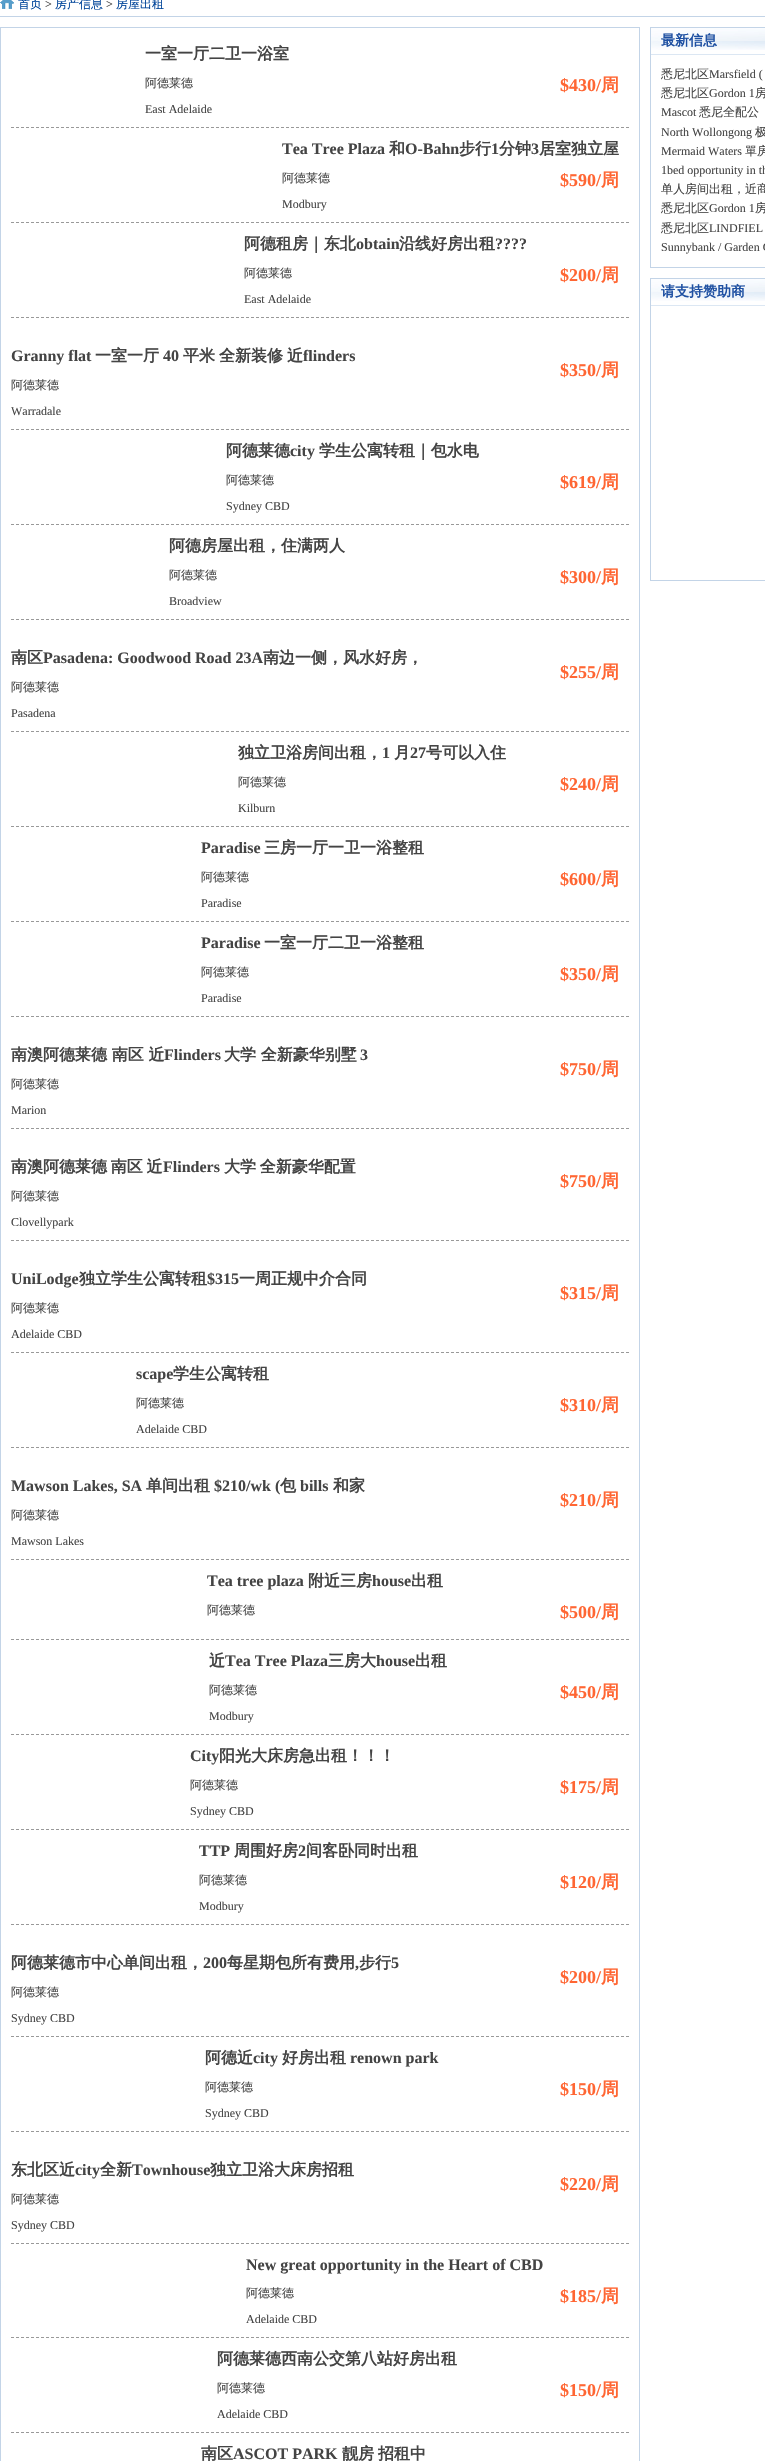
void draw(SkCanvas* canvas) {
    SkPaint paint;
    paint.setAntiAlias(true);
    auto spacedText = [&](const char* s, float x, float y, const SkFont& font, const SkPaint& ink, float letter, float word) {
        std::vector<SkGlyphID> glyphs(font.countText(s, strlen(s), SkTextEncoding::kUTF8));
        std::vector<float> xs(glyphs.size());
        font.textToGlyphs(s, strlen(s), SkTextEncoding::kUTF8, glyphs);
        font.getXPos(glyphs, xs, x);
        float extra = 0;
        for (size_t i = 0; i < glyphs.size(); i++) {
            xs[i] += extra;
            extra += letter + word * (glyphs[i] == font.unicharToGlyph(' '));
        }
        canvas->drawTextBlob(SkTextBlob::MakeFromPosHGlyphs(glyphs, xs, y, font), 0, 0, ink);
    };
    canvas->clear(0xFFFFFFFF);
    canvas->drawImageRect(SkImages::DeferredFromEncodedData(SkData::MakeFromFileName("img1.png")), SkRect::MakeXYWH(0, 0, 14, 9), SkSamplingOptions());
    paint.setColor(0xFFC3D4E7);
    canvas->drawRect(SkRect::MakeXYWH(0, 16, 765, 1), paint);
    SkFont font1(fontMgr->matchFamilyStyle("WenQuanYi Zen Hei", SkFontStyle(500, SkFontStyle::kNormal_Width, SkFontStyle::kUpright_Slant)), 12);
    font1.setSubpixel(true);
    paint.setColor(0xFF004499);
    canvas->drawString("首页", 18, 8, font1, paint);
    SkFont font2(fontMgr->matchFamilyStyle("Liberation Serif", SkFontStyle::Normal()), 12);
    font2.setSubpixel(true);
    paint.setColor(0xFF444444);
    canvas->drawString(">", 45, 8, font2, paint);
    paint.setColor(0xFF004499);
    canvas->drawString("房产信息", 55, 8, font1, paint);
    paint.setColor(0xFF444444);
    canvas->drawString(">", 106, 8, font2, paint);
    paint.setColor(0xFF004499);
    canvas->drawString("房屋出租", 116, 8, font1, paint);
    paint.setStyle(SkPaint::kStroke_Style);
    paint.setStrokeWidth(1);
    paint.setColor(0xFFC3D4E7);
    canvas->drawRect(SkRect::MakeXYWH(0.5f, 27.5f, 639, 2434), paint);
    paint.setColor(0xFF999999);
    paint.setPathEffect(SkDashPathEffect::Make({{3, 2}}, 0));
    canvas->drawPath(SkPathBuilder().moveTo(11, 127.5f).lineTo(629, 127.5f).detach(), paint);
    paint.setPathEffect(nullptr);
    SkFont font3(fontMgr->matchFamilyStyle("WenQuanYi Zen Hei", SkFontStyle::Bold()), 16);
    font3.setSubpixel(true);
    paint.setStyle(SkPaint::kFill_Style);
    paint.setColor(0xFF444444);
    canvas->drawString("一室一厅二卫一浴室", 145, 59, font3, paint);
    canvas->drawString("阿德莱德", 145, 87, font1, paint);
    canvas->drawString("East Adelaide", 145, 113, font2, paint);
    SkFont font4(fontMgr->matchFamilyStyle("Liberation Serif", SkFontStyle::Bold()), 18);
    font4.setSubpixel(true);
    paint.setColor(0xFFFF6633);
    canvas->drawString("$430/", 560, 91, font4, paint);
    SkFont font5(fontMgr->matchFamilyStyle("WenQuanYi Zen Hei", SkFontStyle::Bold()), 18);
    font5.setSubpixel(true);
    canvas->drawString("周", 601, 91, font5, paint);
    paint.setStyle(SkPaint::kStroke_Style);
    paint.setColor(0xFF999999);
    paint.setPathEffect(SkDashPathEffect::Make({{3, 2}}, 0));
    canvas->drawPath(SkPathBuilder().moveTo(11, 222.5f).lineTo(629, 222.5f).detach(), paint);
    paint.setPathEffect(nullptr);
    SkFont font6(fontMgr->matchFamilyStyle("Liberation Serif", SkFontStyle::Bold()), 16);
    font6.setSubpixel(true);
    paint.setStyle(SkPaint::kFill_Style);
    paint.setColor(0xFF444444);
    canvas->drawString("Tea Tree Plaza", 282, 154, font6, paint);
    canvas->drawString("和", 389, 154, font3, paint);
    canvas->drawString("O-Bahn", 405, 154, font6, paint);
    canvas->drawString("步行", 459, 154, font3, paint);
    canvas->drawString("1", 491, 154, font6, paint);
    canvas->drawString("分钟", 499, 154, font3, paint);
    canvas->drawString("3", 531, 154, font6, paint);
    canvas->drawString("居室独立屋", 539, 154, font3, paint);
    canvas->drawString("阿德莱德", 282, 182, font1, paint);
    canvas->drawString("Modbury", 282, 208, font2, paint);
    paint.setColor(0xFFFF6633);
    canvas->drawString("$590/", 560, 186, font4, paint);
    canvas->drawString("周", 601, 186, font5, paint);
    paint.setStyle(SkPaint::kStroke_Style);
    paint.setColor(0xFF999999);
    paint.setPathEffect(SkDashPathEffect::Make({{3, 2}}, 0));
    canvas->drawPath(SkPathBuilder().moveTo(11, 317.5f).lineTo(629, 317.5f).detach(), paint);
    paint.setPathEffect(nullptr);
    paint.setStyle(SkPaint::kFill_Style);
    paint.setColor(0xFF444444);
    canvas->drawString("阿德租房｜东北", 244, 249, font3, paint);
    canvas->drawString("obtain", 356, 249, font6, paint);
    canvas->drawString("沿线好房出租", 399, 249, font3, paint);
    canvas->drawString("?\077?\077", 495, 249, font6, paint);
    canvas->drawString("阿德莱德", 244, 277, font1, paint);
    canvas->drawString("East Adelaide", 244, 303, font2, paint);
    paint.setColor(0xFFFF6633);
    canvas->drawString("$200/", 560, 281, font4, paint);
    canvas->drawString("周", 601, 281, font5, paint);
    paint.setStyle(SkPaint::kStroke_Style);
    paint.setColor(0xFF999999);
    paint.setPathEffect(SkDashPathEffect::Make({{3, 2}}, 0));
    canvas->drawPath(SkPathBuilder().moveTo(11, 429.5f).lineTo(629, 429.5f).detach(), paint);
    paint.setPathEffect(nullptr);
    paint.setStyle(SkPaint::kFill_Style);
    paint.setColor(0xFF444444);
    canvas->drawString("Granny flat", 11, 361, font6, paint);
    canvas->drawString("一室一厅", 95, 361, font3, paint);
    canvas->drawString("40", 163, 361, font6, paint);
    canvas->drawString("平米", 183, 361, font3, paint);
    canvas->drawString("全新装修", 219, 361, font3, paint);
    canvas->drawString("近", 287, 361, font3, paint);
    canvas->drawString("flinders", 303, 361, font6, paint);
    canvas->drawString("阿德莱德", 11, 389, font1, paint);
    canvas->drawString("Warradale", 11, 415, font2, paint);
    paint.setColor(0xFFFF6633);
    canvas->drawString("$350/", 560, 376, font4, paint);
    canvas->drawString("周", 601, 376, font5, paint);
    paint.setStyle(SkPaint::kStroke_Style);
    paint.setColor(0xFF999999);
    paint.setPathEffect(SkDashPathEffect::Make({{3, 2}}, 0));
    canvas->drawPath(SkPathBuilder().moveTo(11, 524.5f).lineTo(629, 524.5f).detach(), paint);
    paint.setPathEffect(nullptr);
    paint.setStyle(SkPaint::kFill_Style);
    paint.setColor(0xFF444444);
    canvas->drawString("阿德莱德", 226, 456, font3, paint);
    canvas->drawString("city", 290, 456, font6, paint);
    canvas->drawString("学生公寓转租｜包水电", 319, 456, font3, paint);
    canvas->drawString("阿德莱德", 226, 484, font1, paint);
    canvas->drawString("Sydney CBD", 226, 510, font2, paint);
    paint.setColor(0xFFFF6633);
    canvas->drawString("$619/", 560, 488, font4, paint);
    canvas->drawString("周", 601, 488, font5, paint);
    paint.setStyle(SkPaint::kStroke_Style);
    paint.setColor(0xFF999999);
    paint.setPathEffect(SkDashPathEffect::Make({{3, 2}}, 0));
    canvas->drawPath(SkPathBuilder().moveTo(11, 619.5f).lineTo(629, 619.5f).detach(), paint);
    paint.setPathEffect(nullptr);
    paint.setStyle(SkPaint::kFill_Style);
    paint.setColor(0xFF444444);
    canvas->drawString("阿德房屋出租，住满两人", 169, 551, font3, paint);
    canvas->drawString("阿德莱德", 169, 579, font1, paint);
    canvas->drawString("Broadview", 169, 605, font2, paint);
    paint.setColor(0xFFFF6633);
    canvas->drawString("$300/", 560, 583, font4, paint);
    canvas->drawString("周", 601, 583, font5, paint);
    paint.setStyle(SkPaint::kStroke_Style);
    paint.setColor(0xFF999999);
    paint.setPathEffect(SkDashPathEffect::Make({{3, 2}}, 0));
    canvas->drawPath(SkPathBuilder().moveTo(11, 731.5f).lineTo(629, 731.5f).detach(), paint);
    paint.setPathEffect(nullptr);
    paint.setStyle(SkPaint::kFill_Style);
    paint.setColor(0xFF444444);
    canvas->drawString("南区", 11, 663, font3, paint);
    canvas->drawString("Pasadena: Goodwood Road 23A", 43, 663, font6, paint);
    canvas->drawString("南边一侧，风水好房，", 263, 663, font3, paint);
    canvas->drawString("阿德莱德", 11, 691, font1, paint);
    canvas->drawString("Pasadena", 11, 717, font2, paint);
    paint.setColor(0xFFFF6633);
    canvas->drawString("$255/", 560, 678, font4, paint);
    canvas->drawString("周", 601, 678, font5, paint);
    paint.setStyle(SkPaint::kStroke_Style);
    paint.setColor(0xFF999999);
    paint.setPathEffect(SkDashPathEffect::Make({{3, 2}}, 0));
    canvas->drawPath(SkPathBuilder().moveTo(11, 826.5f).lineTo(629, 826.5f).detach(), paint);
    paint.setPathEffect(nullptr);
    paint.setStyle(SkPaint::kFill_Style);
    paint.setColor(0xFF444444);
    canvas->drawString("独立卫浴房间出租，", 238, 758, font3, paint);
    canvas->drawString("1", 382, 758, font6, paint);
    canvas->drawString("月", 394, 758, font3, paint);
    canvas->drawString("27", 410, 758, font6, paint);
    canvas->drawString("号可以入住", 426, 758, font3, paint);
    canvas->drawString("阿德莱德", 238, 786, font1, paint);
    canvas->drawString("Kilburn", 238, 812, font2, paint);
    paint.setColor(0xFFFF6633);
    canvas->drawString("$240/", 560, 790, font4, paint);
    canvas->drawString("周", 601, 790, font5, paint);
    paint.setStyle(SkPaint::kStroke_Style);
    paint.setColor(0xFF999999);
    paint.setPathEffect(SkDashPathEffect::Make({{3, 2}}, 0));
    canvas->drawPath(SkPathBuilder().moveTo(11, 921.5f).lineTo(629, 921.5f).detach(), paint);
    paint.setPathEffect(nullptr);
    paint.setStyle(SkPaint::kFill_Style);
    paint.setColor(0xFF444444);
    canvas->drawString("Paradise", 201, 853, font6, paint);
    canvas->drawString("三房一厅一卫一浴整租", 264, 853, font3, paint);
    canvas->drawString("阿德莱德", 201, 881, font1, paint);
    canvas->drawString("Paradise", 201, 907, font2, paint);
    paint.setColor(0xFFFF6633);
    canvas->drawString("$600/", 560, 885, font4, paint);
    canvas->drawString("周", 601, 885, font5, paint);
    paint.setStyle(SkPaint::kStroke_Style);
    paint.setColor(0xFF999999);
    paint.setPathEffect(SkDashPathEffect::Make({{3, 2}}, 0));
    canvas->drawPath(SkPathBuilder().moveTo(11, 1016.5f).lineTo(629, 1016.5f).detach(), paint);
    paint.setPathEffect(nullptr);
    paint.setStyle(SkPaint::kFill_Style);
    paint.setColor(0xFF444444);
    canvas->drawString("Paradise", 201, 948, font6, paint);
    canvas->drawString("一室一厅二卫一浴整租", 264, 948, font3, paint);
    canvas->drawString("阿德莱德", 201, 976, font1, paint);
    canvas->drawString("Paradise", 201, 1002, font2, paint);
    paint.setColor(0xFFFF6633);
    canvas->drawString("$350/", 560, 980, font4, paint);
    canvas->drawString("周", 601, 980, font5, paint);
    paint.setStyle(SkPaint::kStroke_Style);
    paint.setColor(0xFF999999);
    paint.setPathEffect(SkDashPathEffect::Make({{3, 2}}, 0));
    canvas->drawPath(SkPathBuilder().moveTo(11, 1128.5f).lineTo(629, 1128.5f).detach(), paint);
    paint.setPathEffect(nullptr);
    paint.setStyle(SkPaint::kFill_Style);
    paint.setColor(0xFF444444);
    canvas->drawString("南澳阿德莱德 南区 近", 11, 1060, font3, paint);
    canvas->drawString("Flinders", 164, 1060, font6, paint);
    canvas->drawString("大学 全新豪华别墅", 224, 1060, font3, paint);
    canvas->drawString("3", 360, 1060, font6, paint);
    canvas->drawString("阿德莱德", 11, 1088, font1, paint);
    canvas->drawString("Marion", 11, 1114, font2, paint);
    paint.setColor(0xFFFF6633);
    canvas->drawString("$750/", 560, 1075, font4, paint);
    canvas->drawString("周", 601, 1075, font5, paint);
    paint.setStyle(SkPaint::kStroke_Style);
    paint.setColor(0xFF999999);
    paint.setPathEffect(SkDashPathEffect::Make({{3, 2}}, 0));
    canvas->drawPath(SkPathBuilder().moveTo(11, 1240.5f).lineTo(629, 1240.5f).detach(), paint);
    paint.setPathEffect(nullptr);
    paint.setStyle(SkPaint::kFill_Style);
    paint.setColor(0xFF444444);
    spacedText("南澳阿德莱德 南区 近", 11, 1172, font3, paint, 0, -1);
    canvas->drawString("Flinders", 163, 1172, font6, paint);
    spacedText("大学 全新豪华配置", 224, 1172, font3, paint, 0, -1);
    canvas->drawString("阿德莱德", 11, 1200, font1, paint);
    canvas->drawString("Clovellypark", 11, 1226, font2, paint);
    paint.setColor(0xFFFF6633);
    canvas->drawString("$750/", 560, 1187, font4, paint);
    canvas->drawString("周", 601, 1187, font5, paint);
    paint.setStyle(SkPaint::kStroke_Style);
    paint.setColor(0xFF999999);
    paint.setPathEffect(SkDashPathEffect::Make({{3, 2}}, 0));
    canvas->drawPath(SkPathBuilder().moveTo(11, 1352.5f).lineTo(629, 1352.5f).detach(), paint);
    paint.setPathEffect(nullptr);
    paint.setStyle(SkPaint::kFill_Style);
    paint.setColor(0xFF444444);
    canvas->drawString("UniLodge", 11, 1284, font6, paint);
    canvas->drawString("独立学生公寓转租", 79, 1284, font3, paint);
    canvas->drawString("$315", 207, 1284, font6, paint);
    canvas->drawString("一周正规中介合同", 239, 1284, font3, paint);
    canvas->drawString("阿德莱德", 11, 1312, font1, paint);
    canvas->drawString("Adelaide CBD", 11, 1338, font2, paint);
    paint.setColor(0xFFFF6633);
    canvas->drawString("$315/", 560, 1299, font4, paint);
    canvas->drawString("周", 601, 1299, font5, paint);
    paint.setStyle(SkPaint::kStroke_Style);
    paint.setColor(0xFF999999);
    paint.setPathEffect(SkDashPathEffect::Make({{3, 2}}, 0));
    canvas->drawPath(SkPathBuilder().moveTo(11, 1447.5f).lineTo(629, 1447.5f).detach(), paint);
    paint.setPathEffect(nullptr);
    paint.setStyle(SkPaint::kFill_Style);
    paint.setColor(0xFF444444);
    canvas->drawString("scape", 136, 1379, font6, paint);
    canvas->drawString("学生公寓转租", 173, 1379, font3, paint);
    canvas->drawString("阿德莱德", 136, 1407, font1, paint);
    canvas->drawString("Adelaide CBD", 136, 1433, font2, paint);
    paint.setColor(0xFFFF6633);
    canvas->drawString("$310/", 560, 1411, font4, paint);
    canvas->drawString("周", 601, 1411, font5, paint);
    paint.setStyle(SkPaint::kStroke_Style);
    paint.setColor(0xFF999999);
    paint.setPathEffect(SkDashPathEffect::Make({{3, 2}}, 0));
    canvas->drawPath(SkPathBuilder().moveTo(11, 1559.5f).lineTo(629, 1559.5f).detach(), paint);
    paint.setPathEffect(nullptr);
    paint.setStyle(SkPaint::kFill_Style);
    paint.setColor(0xFF444444);
    canvas->drawString("Mawson Lakes, SA", 11, 1491, font6, paint);
    canvas->drawString("单间出租", 146, 1491, font3, paint);
    canvas->drawString("$210/wk (", 214, 1491, font6, paint);
    canvas->drawString("包", 280, 1491, font3, paint);
    canvas->drawString("bills", 300, 1491, font6, paint);
    canvas->drawString("和家", 333, 1491, font3, paint);
    canvas->drawString("阿德莱德", 11, 1519, font1, paint);
    canvas->drawString("Mawson Lakes", 11, 1545, font2, paint);
    paint.setColor(0xFFFF6633);
    canvas->drawString("$210/", 560, 1506, font4, paint);
    canvas->drawString("周", 601, 1506, font5, paint);
    paint.setStyle(SkPaint::kStroke_Style);
    paint.setColor(0xFF999999);
    paint.setPathEffect(SkDashPathEffect::Make({{3, 2}}, 0));
    canvas->drawPath(SkPathBuilder().moveTo(11, 1639.5f).lineTo(629, 1639.5f).detach(), paint);
    paint.setPathEffect(nullptr);
    paint.setStyle(SkPaint::kFill_Style);
    paint.setColor(0xFF444444);
    canvas->drawString("Tea tree plaza", 207, 1586, font6, paint);
    canvas->drawString("附近三房", 308, 1586, font3, paint);
    canvas->drawString("house", 372, 1586, font6, paint);
    canvas->drawString("出租", 411, 1586, font3, paint);
    canvas->drawString("阿德莱德", 207, 1614, font1, paint);
    paint.setColor(0xFFFF6633);
    canvas->drawString("$500/", 560, 1618, font4, paint);
    canvas->drawString("周", 601, 1618, font5, paint);
    paint.setStyle(SkPaint::kStroke_Style);
    paint.setColor(0xFF999999);
    paint.setPathEffect(SkDashPathEffect::Make({{3, 2}}, 0));
    canvas->drawPath(SkPathBuilder().moveTo(11, 1734.5f).lineTo(629, 1734.5f).detach(), paint);
    paint.setPathEffect(nullptr);
    paint.setStyle(SkPaint::kFill_Style);
    paint.setColor(0xFF444444);
    canvas->drawString("近", 209, 1666, font3, paint);
    canvas->drawString("Tea Tree Plaza", 225, 1666, font6, paint);
    canvas->drawString("三房大", 328, 1666, font3, paint);
    canvas->drawString("house", 376, 1666, font6, paint);
    canvas->drawString("出租", 415, 1666, font3, paint);
    canvas->drawString("阿德莱德", 209, 1694, font1, paint);
    canvas->drawString("Modbury", 209, 1720, font2, paint);
    paint.setColor(0xFFFF6633);
    canvas->drawString("$450/", 560, 1698, font4, paint);
    canvas->drawString("周", 601, 1698, font5, paint);
    paint.setStyle(SkPaint::kStroke_Style);
    paint.setColor(0xFF999999);
    paint.setPathEffect(SkDashPathEffect::Make({{3, 2}}, 0));
    canvas->drawPath(SkPathBuilder().moveTo(11, 1829.5f).lineTo(629, 1829.5f).detach(), paint);
    paint.setPathEffect(nullptr);
    paint.setStyle(SkPaint::kFill_Style);
    paint.setColor(0xFF444444);
    canvas->drawString("City", 190, 1761, font6, paint);
    canvas->drawString("阳光大床房急出租！！！", 219, 1761, font3, paint);
    canvas->drawString("阿德莱德", 190, 1789, font1, paint);
    canvas->drawString("Sydney CBD", 190, 1815, font2, paint);
    paint.setColor(0xFFFF6633);
    canvas->drawString("$175/", 560, 1793, font4, paint);
    canvas->drawString("周", 601, 1793, font5, paint);
    paint.setStyle(SkPaint::kStroke_Style);
    paint.setColor(0xFF999999);
    paint.setPathEffect(SkDashPathEffect::Make({{3, 2}}, 0));
    canvas->drawPath(SkPathBuilder().moveTo(11, 1924.5f).lineTo(629, 1924.5f).detach(), paint);
    paint.setPathEffect(nullptr);
    paint.setStyle(SkPaint::kFill_Style);
    paint.setColor(0xFF444444);
    canvas->drawString("TTP", 199, 1856, font6, paint);
    canvas->drawString("周围好房", 234, 1856, font3, paint);
    canvas->drawString("2", 298, 1856, font6, paint);
    canvas->drawString("间客卧同时出租", 306, 1856, font3, paint);
    canvas->drawString("阿德莱德", 199, 1884, font1, paint);
    canvas->drawString("Modbury", 199, 1910, font2, paint);
    paint.setColor(0xFFFF6633);
    canvas->drawString("$120/", 560, 1888, font4, paint);
    canvas->drawString("周", 601, 1888, font5, paint);
    paint.setStyle(SkPaint::kStroke_Style);
    paint.setColor(0xFF999999);
    paint.setPathEffect(SkDashPathEffect::Make({{3, 2}}, 0));
    canvas->drawPath(SkPathBuilder().moveTo(11, 2036.5f).lineTo(629, 2036.5f).detach(), paint);
    paint.setPathEffect(nullptr);
    paint.setStyle(SkPaint::kFill_Style);
    paint.setColor(0xFF444444);
    canvas->drawString("阿德莱德市中心单间出租，", 11, 1968, font3, paint);
    canvas->drawString("200", 203, 1968, font6, paint);
    canvas->drawString("每星期包所有费用", 227, 1968, font3, paint);
    canvas->drawString(",", 355, 1968, font6, paint);
    canvas->drawString("步行", 359, 1968, font3, paint);
    canvas->drawString("5", 391, 1968, font6, paint);
    canvas->drawString("阿德莱德", 11, 1996, font1, paint);
    canvas->drawString("Sydney CBD", 11, 2022, font2, paint);
    paint.setColor(0xFFFF6633);
    canvas->drawString("$200/", 560, 1983, font4, paint);
    canvas->drawString("周", 601, 1983, font5, paint);
    paint.setStyle(SkPaint::kStroke_Style);
    paint.setColor(0xFF999999);
    paint.setPathEffect(SkDashPathEffect::Make({{3, 2}}, 0));
    canvas->drawPath(SkPathBuilder().moveTo(11, 2131.5f).lineTo(629, 2131.5f).detach(), paint);
    paint.setPathEffect(nullptr);
    paint.setStyle(SkPaint::kFill_Style);
    paint.setColor(0xFF444444);
    canvas->drawString("阿德近", 205, 2063, font3, paint);
    canvas->drawString("city", 253, 2063, font6, paint);
    canvas->drawString("好房出租", 282, 2063, font3, paint);
    canvas->drawString("renown park", 350, 2063, font6, paint);
    canvas->drawString("阿德莱德", 205, 2091, font1, paint);
    canvas->drawString("Sydney CBD", 205, 2117, font2, paint);
    paint.setColor(0xFFFF6633);
    canvas->drawString("$150/", 560, 2095, font4, paint);
    canvas->drawString("周", 601, 2095, font5, paint);
    paint.setStyle(SkPaint::kStroke_Style);
    paint.setColor(0xFF999999);
    paint.setPathEffect(SkDashPathEffect::Make({{3, 2}}, 0));
    canvas->drawPath(SkPathBuilder().moveTo(11, 2243.5f).lineTo(629, 2243.5f).detach(), paint);
    paint.setPathEffect(nullptr);
    paint.setStyle(SkPaint::kFill_Style);
    paint.setColor(0xFF444444);
    canvas->drawString("东北区近", 11, 2175, font3, paint);
    canvas->drawString("city", 75, 2175, font6, paint);
    canvas->drawString("全新", 100, 2175, font3, paint);
    canvas->drawString("Townhouse", 132, 2175, font6, paint);
    canvas->drawString("独立卫浴大床房招租", 210, 2175, font3, paint);
    canvas->drawString("阿德莱德", 11, 2203, font1, paint);
    canvas->drawString("Sydney CBD", 11, 2229, font2, paint);
    paint.setColor(0xFFFF6633);
    canvas->drawString("$220/", 560, 2190, font4, paint);
    canvas->drawString("周", 601, 2190, font5, paint);
    paint.setStyle(SkPaint::kStroke_Style);
    paint.setColor(0xFF999999);
    paint.setPathEffect(SkDashPathEffect::Make({{3, 2}}, 0));
    canvas->drawPath(SkPathBuilder().moveTo(11, 2337.5f).lineTo(629, 2337.5f).detach(), paint);
    paint.setPathEffect(nullptr);
    paint.setStyle(SkPaint::kFill_Style);
    paint.setColor(0xFF444444);
    canvas->drawString("New great opportunity in the Heart of CBD", 246, 2270, font6, paint);
    canvas->drawString("阿德莱德", 246, 2297, font1, paint);
    canvas->drawString("Adelaide CBD", 246, 2323, font2, paint);
    paint.setColor(0xFFFF6633);
    canvas->drawString("$185/", 560, 2302, font4, paint);
    canvas->drawString("周", 601, 2302, font5, paint);
    paint.setStyle(SkPaint::kStroke_Style);
    paint.setColor(0xFF999999);
    paint.setPathEffect(SkDashPathEffect::Make({{3, 2}}, 0));
    canvas->drawPath(SkPathBuilder().moveTo(11, 2432.5f).lineTo(629, 2432.5f).detach(), paint);
    paint.setPathEffect(nullptr);
    paint.setStyle(SkPaint::kFill_Style);
    paint.setColor(0xFF444444);
    canvas->drawString("阿德莱德西南公交第八站好房出租", 217, 2364, font3, paint);
    canvas->drawString("阿德莱德", 217, 2392, font1, paint);
    canvas->drawString("Adelaide CBD", 217, 2418, font2, paint);
    paint.setColor(0xFFFF6633);
    canvas->drawString("$150/", 560, 2396, font4, paint);
    canvas->drawString("周", 601, 2396, font5, paint);
    paint.setColor(0xFF444444);
    canvas->drawString("南区", 201, 2459, font3, paint);
    canvas->drawString("ASCOT PARK", 233, 2459, font6, paint);
    canvas->drawString("靓房", 342, 2459, font3, paint);
    canvas->drawString("招租中", 378, 2459, font3, paint);
    paint.setStyle(SkPaint::kStroke_Style);
    paint.setColor(0xFFC3D4E7);
    canvas->drawRect(SkRect::MakeXYWH(650.5f, 27.5f, 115, 240), paint);
    canvas->drawImageRect(SkImages::DeferredFromEncodedData(SkData::MakeFromFileName("img2.png")), SkRect::MakeXYWH(651, 28, 114, 22), SkSamplingOptions());
    paint.setStyle(SkPaint::kFill_Style);
    paint.setColor(0xFFDCE7F3);
    canvas->drawRect(SkRect::MakeXYWH(651, 54, 114, 1), paint);
    SkFont font7(fontMgr->matchFamilyStyle("WenQuanYi Zen Hei", SkFontStyle::Bold()), 14);
    font7.setSubpixel(true);
    paint.setColor(0xFF1E50A2);
    canvas->drawString("最新信息", 661, 45, font7, paint);
    paint.setColor(0xFF444444);
    canvas->drawString("悉尼北区", 661, 78, font1, paint);
    canvas->drawString("Marsfield (", 709, 78, font2, paint);
    canvas->drawString("悉尼北区", 661, 97, font1, paint);
    canvas->drawString("Gordon 1", 709, 97, font2, paint);
    canvas->drawString("房", 755, 97, font1, paint);
    canvas->drawString("Mascot", 661, 116, font2, paint);
    canvas->drawString("悉尼全配公", 699, 116, font1, paint);
    canvas->drawString("North Wollongong", 661, 136, font2, paint);
    canvas->drawString("极", 755, 136, font1, paint);
    canvas->drawString("Mermaid Waters", 661, 155, font2, paint);
    canvas->drawString("單房", 745, 155, font1, paint);
    canvas->drawString("1bed opportunity in th", 661, 174, font2, paint);
    canvas->drawString("单人房间出租，近商", 661, 193, font1, paint);
    canvas->drawString("悉尼北区", 661, 212, font1, paint);
    canvas->drawString("Gordon 1", 709, 212, font2, paint);
    canvas->drawString("房", 755, 212, font1, paint);
    canvas->drawString("悉尼北区", 661, 232, font1, paint);
    canvas->drawString("LINDFIEL", 709, 232, font2, paint);
    canvas->drawString("Sunnybank / Garden C", 661, 251, font2, paint);
    paint.setStyle(SkPaint::kStroke_Style);
    paint.setColor(0xFFC3D4E7);
    canvas->drawRect(SkRect::MakeXYWH(650.5f, 278.5f, 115, 302), paint);
    canvas->drawImageRect(SkImages::DeferredFromEncodedData(SkData::MakeFromFileName("img2.png")), SkRect::MakeXYWH(651, 279, 114, 22), SkSamplingOptions());
    paint.setStyle(SkPaint::kFill_Style);
    paint.setColor(0xFFDCE7F3);
    canvas->drawRect(SkRect::MakeXYWH(651, 305, 114, 1), paint);
    paint.setColor(0xFF1E50A2);
    canvas->drawString("请支持赞助商", 661, 296, font7, paint);
}
